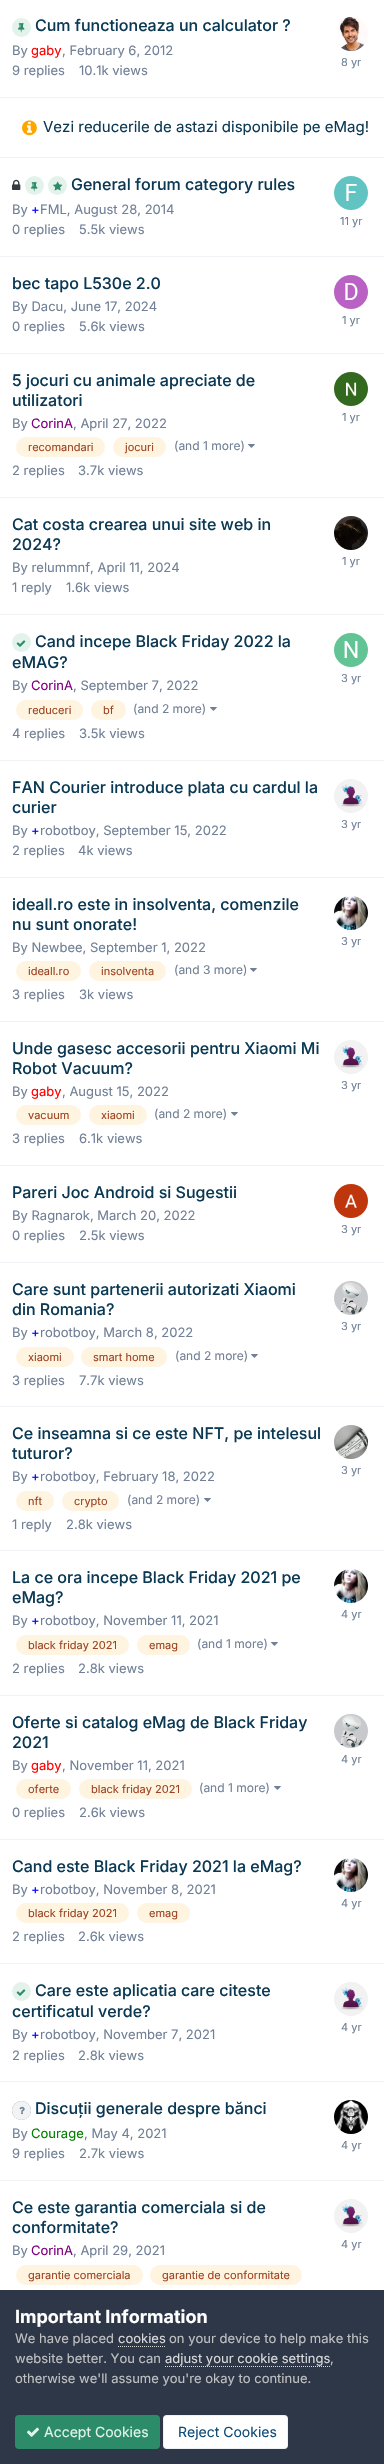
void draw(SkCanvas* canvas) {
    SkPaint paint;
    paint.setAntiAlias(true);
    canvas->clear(0xFFFFFFFF);
    paint.setColor(0xFFF1F2F5);
    canvas->drawRect(SkRect::MakeXYWH(0, 97, 384, 1), paint);
    paint.setColor(0xFFE3F3EC);
    canvas->drawCircle(21.5f, 27.5f, 9.5f, paint);
    canvas->drawImageRect(SkImages::DeferredFromEncodedData(SkData::MakeFromFileName("img1.png")), SkRect::MakeXYWH(18, 23, 7, 10), SkSamplingOptions());
    SkFont font1(fontMgr->matchFamilyStyle("Inter", SkFontStyle(500, SkFontStyle::kNormal_Width, SkFontStyle::kUpright_Slant)), 16);
    font1.setSubpixel(true);
    paint.setColor(0xFF0B3954);
    canvas->drawString("Cum functioneaza un calculator ?", 35, 31, font1, paint);
    SkFont font2(fontMgr->matchFamilyStyle("Inter", SkFontStyle::Normal()), 13);
    font2.setSubpixel(true);
    paint.setColor(0xFF718096);
    canvas->drawString("By", 12, 55, font2, paint);
    paint.setColor(0xFFFF0000);
    canvas->drawString("gaby", 31, 55, font2, paint);
    paint.setColor(0xFF718096);
    canvas->drawString(", February 6, 2012", 62, 55, font2, paint);
    canvas->drawImageRect(SkImages::DeferredFromEncodedData(SkData::MakeFromFileName("img2.png")), SkRect::MakeXYWH(338, 17, 30, 34), SkSamplingOptions());
    SkFont font3(fontMgr->matchFamilyStyle("Inter", SkFontStyle::Normal()), 11);
    font3.setSubpixel(true);
    canvas->drawString("8 yr", 341, 66, font3, paint);
    canvas->drawString("9 replies", 12, 75, font2, paint);
    canvas->drawString("10.1k views", 79, 75, font2, paint);
    paint.setColor(0xFFF1F2F5);
    canvas->drawRect(SkRect::MakeXYWH(0, 157, 384, 1), paint);
    canvas->drawImageRect(SkImages::DeferredFromEncodedData(SkData::MakeFromFileName("img3.png")), SkRect::MakeXYWH(22, 120, 15, 16), SkSamplingOptions());
    SkFont font4(fontMgr->matchFamilyStyle("Inter", SkFontStyle::Normal()), 15);
    font4.setSubpixel(true);
    paint.setColor(0xFF0B3954);
    canvas->drawString("Vezi reducerile de astazi disponibile pe eMag!", 43, 132, font4, paint);
    paint.setColor(0xFFF1F2F5);
    canvas->drawRect(SkRect::MakeXYWH(0, 256, 384, 1), paint);
    canvas->drawImageRect(SkImages::DeferredFromEncodedData(SkData::MakeFromFileName("img4.png")), SkRect::MakeXYWH(12, 179, 9, 11), SkSamplingOptions());
    paint.setColor(0xFFE3F3EC);
    canvas->drawCircle(34.5f, 185.5f, 9.5f, paint);
    canvas->drawImageRect(SkImages::DeferredFromEncodedData(SkData::MakeFromFileName("img1.png")), SkRect::MakeXYWH(31, 182, 7, 10), SkSamplingOptions());
    canvas->drawCircle(57.5f, 185.5f, 9.5f, paint);
    canvas->drawImageRect(SkImages::DeferredFromEncodedData(SkData::MakeFromFileName("img5.png")), SkRect::MakeXYWH(53, 181, 10, 10), SkSamplingOptions());
    paint.setColor(0xFF0B3954);
    canvas->drawString("General forum category rules", 71, 190, font1, paint);
    paint.setColor(0xFF718096);
    canvas->drawString("By", 12, 214, font2, paint);
    paint.setColor(0xFF0000FF);
    canvas->drawString("+", 31, 214, font2, paint);
    paint.setColor(0xFF718096);
    canvas->drawString("FML, August 28, 2014", 40, 214, font2, paint);
    canvas->drawImageRect(SkImages::DeferredFromEncodedData(SkData::MakeFromFileName("img6.png")), SkRect::MakeXYWH(334, 176, 34, 34), SkSamplingOptions());
    canvas->drawString("11 yr", 340, 225, font3, paint);
    canvas->drawString("0 replies", 12, 234, font2, paint);
    canvas->drawString("5.5k views", 79, 234, font2, paint);
    paint.setColor(0xFFF1F2F5);
    canvas->drawRect(SkRect::MakeXYWH(0, 353, 384, 1), paint);
    paint.setColor(0xFF0B3954);
    canvas->drawString("bec tapo L530e 2.0", 12, 289, font1, paint);
    paint.setColor(0xFF718096);
    canvas->drawString("By Dacu, June 17, 2024", 12, 311, font2, paint);
    canvas->drawString("0 replies", 12, 331, font2, paint);
    canvas->drawString("5.6k views", 79, 331, font2, paint);
    canvas->drawImageRect(SkImages::DeferredFromEncodedData(SkData::MakeFromFileName("img7.png")), SkRect::MakeXYWH(334, 275, 34, 34), SkSamplingOptions());
    canvas->drawString("1 yr", 342, 324, font3, paint);
    paint.setColor(0xFFF1F2F5);
    canvas->drawRect(SkRect::MakeXYWH(0, 497, 384, 1), paint);
    paint.setColor(0xFF0B3954);
    canvas->drawString("5 jocuri cu animale apreciate de", 12, 386, font1, paint);
    canvas->drawString("utilizatori", 12, 406, font1, paint);
    paint.setColor(0xFF718096);
    canvas->drawString("By", 12, 428, font2, paint);
    paint.setColor(0xFF800080);
    canvas->drawString("CorinA", 31, 428, font2, paint);
    paint.setColor(0xFF718096);
    canvas->drawString(", April 27, 2022", 73, 428, font2, paint);
    paint.setColor(0xFFFFF4DF);
    canvas->drawRoundRect(SkRect::MakeXYWH(16, 437, 89, 20), 10, 10, paint);
    paint.setColor(0xFF9C4221);
    canvas->drawString("recomandari", 28, 451, font3, paint);
    paint.setColor(0xFFFFF4DF);
    canvas->drawRoundRect(SkRect::MakeXYWH(113, 437, 53, 20), 10, 10, paint);
    paint.setColor(0xFF9C4221);
    canvas->drawString("jocuri", 125, 451, font3, paint);
    SkFont font5(fontMgr->matchFamilyStyle("Inter", SkFontStyle::Normal()), 12);
    font5.setSubpixel(true);
    paint.setColor(0xFF718096);
    canvas->drawString("(and 1 more)", 174, 450, font5, paint);
    canvas->drawImageRect(SkImages::DeferredFromEncodedData(SkData::MakeFromFileName("img8.png")), SkRect::MakeXYWH(248, 444, 7, 4), SkSamplingOptions());
    canvas->drawImageRect(SkImages::DeferredFromEncodedData(SkData::MakeFromFileName("img9.png")), SkRect::MakeXYWH(334, 372, 34, 34), SkSamplingOptions());
    canvas->drawString("1 yr", 342, 421, font3, paint);
    canvas->drawString("2 replies", 12, 475, font2, paint);
    canvas->drawString("3.7k views", 78, 475, font2, paint);
    paint.setColor(0xFFF1F2F5);
    canvas->drawRect(SkRect::MakeXYWH(0, 614, 384, 1), paint);
    paint.setColor(0xFF0B3954);
    canvas->drawString("Cat costa crearea unui site web in", 12, 530, font1, paint);
    canvas->drawString("2024?", 12, 550, font1, paint);
    paint.setColor(0xFF718096);
    canvas->drawString("By relummnf, April 11, 2024", 12, 572, font2, paint);
    canvas->drawImageRect(SkImages::DeferredFromEncodedData(SkData::MakeFromFileName("img10.png")), SkRect::MakeXYWH(334, 516, 34, 34), SkSamplingOptions());
    canvas->drawString("1 yr", 342, 565, font3, paint);
    canvas->drawString("1 reply", 12, 592, font2, paint);
    canvas->drawString("1.6k views", 66, 592, font2, paint);
    paint.setColor(0xFFF1F2F5);
    canvas->drawRect(SkRect::MakeXYWH(0, 760, 384, 1), paint);
    paint.setColor(0xFFE3F3EC);
    canvas->drawCircle(21.5f, 642.5f, 9.5f, paint);
    canvas->drawImageRect(SkImages::DeferredFromEncodedData(SkData::MakeFromFileName("img11.png")), SkRect::MakeXYWH(16, 640, 10, 7), SkSamplingOptions());
    paint.setColor(0xFF0B3954);
    canvas->drawString("Cand incepe Black Friday 2022 la", 35, 647, font1, paint);
    canvas->drawString("eMAG?", 12, 668, font1, paint);
    paint.setColor(0xFF718096);
    canvas->drawString("By", 12, 690, font2, paint);
    paint.setColor(0xFF800080);
    canvas->drawString("CorinA", 31, 690, font2, paint);
    paint.setColor(0xFF718096);
    canvas->drawString(", September 7, 2022", 73, 690, font2, paint);
    paint.setColor(0xFFFFF4DF);
    canvas->drawRoundRect(SkRect::MakeXYWH(16, 700, 67, 20), 10, 10, paint);
    paint.setColor(0xFF9C4221);
    canvas->drawString("reduceri", 28, 714, font3, paint);
    paint.setColor(0xFFFFF4DF);
    canvas->drawRoundRect(SkRect::MakeXYWH(91, 700, 35, 20), 10, 10, paint);
    paint.setColor(0xFF9C4221);
    canvas->drawString("bf", 103, 714, font3, paint);
    paint.setColor(0xFF718096);
    canvas->drawString("(and 2 more)", 133, 713, font5, paint);
    canvas->drawImageRect(SkImages::DeferredFromEncodedData(SkData::MakeFromFileName("img8.png")), SkRect::MakeXYWH(210, 707, 7, 4), SkSamplingOptions());
    canvas->drawImageRect(SkImages::DeferredFromEncodedData(SkData::MakeFromFileName("img12.png")), SkRect::MakeXYWH(334, 633, 34, 34), SkSamplingOptions());
    canvas->drawString("3 yr", 341, 682, font3, paint);
    canvas->drawString("4 replies", 12, 738, font2, paint);
    canvas->drawString("3.5k views", 79, 738, font2, paint);
    paint.setColor(0xFFF1F2F5);
    canvas->drawRect(SkRect::MakeXYWH(0, 877, 384, 1), paint);
    paint.setColor(0xFF0B3954);
    canvas->drawString("FAN Courier introduce plata cu cardul la", 12, 793, font1, paint);
    canvas->drawString("curier", 12, 813, font1, paint);
    paint.setColor(0xFF718096);
    canvas->drawString("By", 12, 835, font2, paint);
    paint.setColor(0xFF0000FF);
    canvas->drawString("+", 31, 835, font2, paint);
    paint.setColor(0xFF718096);
    canvas->drawString("robotboy, September 15, 2022", 40, 835, font2, paint);
    canvas->drawImageRect(SkImages::DeferredFromEncodedData(SkData::MakeFromFileName("img13.png")), SkRect::MakeXYWH(334, 779, 34, 34), SkSamplingOptions());
    canvas->drawString("3 yr", 341, 828, font3, paint);
    canvas->drawString("2 replies", 12, 855, font2, paint);
    canvas->drawString("4k views", 78, 855, font2, paint);
    paint.setColor(0xFFF1F2F5);
    canvas->drawRect(SkRect::MakeXYWH(0, 1021, 384, 1), paint);
    paint.setColor(0xFF0B3954);
    canvas->drawString("ideall.ro este in insolventa, comenzile", 12, 910, font1, paint);
    canvas->drawString("nu sunt onorate!", 12, 930, font1, paint);
    paint.setColor(0xFF718096);
    canvas->drawString("By Newbee, September 1, 2022", 12, 952, font2, paint);
    paint.setColor(0xFFFFF4DF);
    canvas->drawRoundRect(SkRect::MakeXYWH(16, 961, 65, 20), 10, 10, paint);
    paint.setColor(0xFF9C4221);
    canvas->drawString("ideall.ro", 28, 975, font3, paint);
    paint.setColor(0xFFFFF4DF);
    canvas->drawRoundRect(SkRect::MakeXYWH(89, 961, 77, 20), 10, 10, paint);
    paint.setColor(0xFF9C4221);
    canvas->drawString("insolventa", 101, 975, font3, paint);
    paint.setColor(0xFF718096);
    canvas->drawString("(and 3 more)", 174, 974, font5, paint);
    canvas->drawImageRect(SkImages::DeferredFromEncodedData(SkData::MakeFromFileName("img8.png")), SkRect::MakeXYWH(250, 968, 7, 4), SkSamplingOptions());
    canvas->drawImageRect(SkImages::DeferredFromEncodedData(SkData::MakeFromFileName("img14.png")), SkRect::MakeXYWH(334, 896, 34, 34), SkSamplingOptions());
    canvas->drawString("3 yr", 341, 945, font3, paint);
    canvas->drawString("3 replies", 12, 999, font2, paint);
    canvas->drawString("3k views", 79, 999, font2, paint);
    paint.setColor(0xFFF1F2F5);
    canvas->drawRect(SkRect::MakeXYWH(0, 1165, 384, 1), paint);
    paint.setColor(0xFF0B3954);
    canvas->drawString("Unde gasesc accesorii pentru Xiaomi Mi", 12, 1054, font1, paint);
    canvas->drawString("Robot Vacuum?", 12, 1074, font1, paint);
    paint.setColor(0xFF718096);
    canvas->drawString("By", 12, 1096, font2, paint);
    paint.setColor(0xFFFF0000);
    canvas->drawString("gaby", 31, 1096, font2, paint);
    paint.setColor(0xFF718096);
    canvas->drawString(", August 15, 2022", 62, 1096, font2, paint);
    paint.setColor(0xFFFFF4DF);
    canvas->drawRoundRect(SkRect::MakeXYWH(16, 1105, 65, 20), 10, 10, paint);
    paint.setColor(0xFF9C4221);
    canvas->drawString("vacuum", 28, 1119, font3, paint);
    paint.setColor(0xFFFFF4DF);
    canvas->drawRoundRect(SkRect::MakeXYWH(89, 1105, 58, 20), 10, 10, paint);
    paint.setColor(0xFF9C4221);
    canvas->drawString("xiaomi", 101, 1119, font3, paint);
    paint.setColor(0xFF718096);
    canvas->drawString("(and 2 more)", 154, 1118, font5, paint);
    canvas->drawImageRect(SkImages::DeferredFromEncodedData(SkData::MakeFromFileName("img8.png")), SkRect::MakeXYWH(231, 1112, 7, 4), SkSamplingOptions());
    canvas->drawImageRect(SkImages::DeferredFromEncodedData(SkData::MakeFromFileName("img15.png")), SkRect::MakeXYWH(334, 1040, 34, 34), SkSamplingOptions());
    canvas->drawString("3 yr", 341, 1089, font3, paint);
    canvas->drawString("3 replies", 12, 1143, font2, paint);
    canvas->drawString("6.1k views", 79, 1143, font2, paint);
    paint.setColor(0xFFF1F2F5);
    canvas->drawRect(SkRect::MakeXYWH(0, 1262, 384, 1), paint);
    paint.setColor(0xFF0B3954);
    canvas->drawString("Pareri Joc Android si Sugestii", 12, 1198, font1, paint);
    paint.setColor(0xFF718096);
    canvas->drawString("By Ragnarok, March 20, 2022", 12, 1220, font2, paint);
    canvas->drawString("0 replies", 12, 1240, font2, paint);
    canvas->drawString("2.5k views", 79, 1240, font2, paint);
    canvas->drawImageRect(SkImages::DeferredFromEncodedData(SkData::MakeFromFileName("img16.png")), SkRect::MakeXYWH(334, 1184, 34, 34), SkSamplingOptions());
    canvas->drawString("3 yr", 341, 1233, font3, paint);
    paint.setColor(0xFFF1F2F5);
    canvas->drawRect(SkRect::MakeXYWH(0, 1406, 384, 1), paint);
    paint.setColor(0xFF0B3954);
    canvas->drawString("Care sunt partenerii autorizati Xiaomi", 12, 1295, font1, paint);
    canvas->drawString("din Romania?", 12, 1315, font1, paint);
    paint.setColor(0xFF718096);
    canvas->drawString("By", 12, 1337, font2, paint);
    paint.setColor(0xFF0000FF);
    canvas->drawString("+", 31, 1337, font2, paint);
    paint.setColor(0xFF718096);
    canvas->drawString("robotboy, March 8, 2022", 40, 1337, font2, paint);
    paint.setColor(0xFFFFF4DF);
    canvas->drawRoundRect(SkRect::MakeXYWH(16, 1347, 58, 20), 10, 10, paint);
    paint.setColor(0xFF9C4221);
    canvas->drawString("xiaomi", 28, 1361, font3, paint);
    paint.setColor(0xFFFFF4DF);
    canvas->drawRoundRect(SkRect::MakeXYWH(81, 1347, 86, 20), 10, 10, paint);
    paint.setColor(0xFF9C4221);
    canvas->drawString("smart home", 93, 1361, font3, paint);
    paint.setColor(0xFF718096);
    canvas->drawString("(and 2 more)", 175, 1360, font5, paint);
    canvas->drawImageRect(SkImages::DeferredFromEncodedData(SkData::MakeFromFileName("img8.png")), SkRect::MakeXYWH(251, 1354, 7, 4), SkSamplingOptions());
    canvas->drawImageRect(SkImages::DeferredFromEncodedData(SkData::MakeFromFileName("img17.png")), SkRect::MakeXYWH(334, 1281, 34, 34), SkSamplingOptions());
    canvas->drawString("3 yr", 341, 1330, font3, paint);
    canvas->drawString("3 replies", 12, 1385, font2, paint);
    canvas->drawString("7.7k views", 79, 1385, font2, paint);
    paint.setColor(0xFFF1F2F5);
    canvas->drawRect(SkRect::MakeXYWH(0, 1550, 384, 1), paint);
    paint.setColor(0xFF0B3954);
    canvas->drawString("Ce inseamna si ce este NFT, pe intelesul", 12, 1439, font1, paint);
    canvas->drawString("tuturor?", 12, 1459, font1, paint);
    paint.setColor(0xFF718096);
    canvas->drawString("By", 12, 1481, font2, paint);
    paint.setColor(0xFF0000FF);
    canvas->drawString("+", 31, 1481, font2, paint);
    paint.setColor(0xFF718096);
    canvas->drawString("robotboy, February 18, 2022", 40, 1481, font2, paint);
    paint.setColor(0xFFFFF4DF);
    canvas->drawRoundRect(SkRect::MakeXYWH(16, 1491, 38, 20), 10, 10, paint);
    paint.setColor(0xFF9C4221);
    canvas->drawString("nft", 28, 1505, font3, paint);
    paint.setColor(0xFFFFF4DF);
    canvas->drawRoundRect(SkRect::MakeXYWH(62, 1491, 57, 20), 10, 10, paint);
    paint.setColor(0xFF9C4221);
    canvas->drawString("crypto", 74, 1505, font3, paint);
    paint.setColor(0xFF718096);
    canvas->drawString("(and 2 more)", 127, 1504, font5, paint);
    canvas->drawImageRect(SkImages::DeferredFromEncodedData(SkData::MakeFromFileName("img8.png")), SkRect::MakeXYWH(204, 1498, 7, 4), SkSamplingOptions());
    canvas->drawImageRect(SkImages::DeferredFromEncodedData(SkData::MakeFromFileName("img18.png")), SkRect::MakeXYWH(334, 1425, 34, 34), SkSamplingOptions());
    canvas->drawString("3 yr", 341, 1474, font3, paint);
    canvas->drawString("1 reply", 12, 1529, font2, paint);
    canvas->drawString("2.8k views", 66, 1529, font2, paint);
    paint.setColor(0xFFF1F2F5);
    canvas->drawRect(SkRect::MakeXYWH(0, 1695, 384, 1), paint);
    paint.setColor(0xFF0B3954);
    canvas->drawString("La ce ora incepe Black Friday 2021 pe", 12, 1583, font1, paint);
    canvas->drawString("eMag?", 12, 1603, font1, paint);
    paint.setColor(0xFF718096);
    canvas->drawString("By", 12, 1625, font2, paint);
    paint.setColor(0xFF0000FF);
    canvas->drawString("+", 31, 1625, font2, paint);
    paint.setColor(0xFF718096);
    canvas->drawString("robotboy, November 11, 2021", 40, 1625, font2, paint);
    paint.setColor(0xFFFFF4DF);
    canvas->drawRoundRect(SkRect::MakeXYWH(16, 1635, 113, 20), 10, 10, paint);
    paint.setColor(0xFF9C4221);
    canvas->drawString("black friday 2021", 28, 1649, font3, paint);
    paint.setColor(0xFFFFF4DF);
    canvas->drawRoundRect(SkRect::MakeXYWH(137, 1635, 53, 20), 10, 10, paint);
    paint.setColor(0xFF9C4221);
    canvas->drawString("emag", 149, 1649, font3, paint);
    paint.setColor(0xFF718096);
    canvas->drawString("(and 1 more)", 197, 1648, font5, paint);
    canvas->drawImageRect(SkImages::DeferredFromEncodedData(SkData::MakeFromFileName("img8.png")), SkRect::MakeXYWH(271, 1642, 7, 4), SkSamplingOptions());
    canvas->drawImageRect(SkImages::DeferredFromEncodedData(SkData::MakeFromFileName("img14.png")), SkRect::MakeXYWH(334, 1569, 34, 34), SkSamplingOptions());
    canvas->drawString("4 yr", 341, 1618, font3, paint);
    canvas->drawString("2 replies", 12, 1673, font2, paint);
    canvas->drawString("2.8k views", 78, 1673, font2, paint);
    paint.setColor(0xFFF1F2F5);
    canvas->drawRect(SkRect::MakeXYWH(0, 1839, 384, 1), paint);
    paint.setColor(0xFF0B3954);
    canvas->drawString("Oferte si catalog eMag de Black Friday", 12, 1728, font1, paint);
    canvas->drawString("2021", 12, 1748, font1, paint);
    paint.setColor(0xFF718096);
    canvas->drawString("By", 12, 1770, font2, paint);
    paint.setColor(0xFFFF0000);
    canvas->drawString("gaby", 31, 1770, font2, paint);
    paint.setColor(0xFF718096);
    canvas->drawString(", November 11, 2021", 62, 1770, font2, paint);
    paint.setColor(0xFFFFF4DF);
    canvas->drawRoundRect(SkRect::MakeXYWH(16, 1779, 55, 20), 10, 10, paint);
    paint.setColor(0xFF9C4221);
    canvas->drawString("oferte", 28, 1793, font3, paint);
    paint.setColor(0xFFFFF4DF);
    canvas->drawRoundRect(SkRect::MakeXYWH(79, 1779, 113, 20), 10, 10, paint);
    paint.setColor(0xFF9C4221);
    canvas->drawString("black friday 2021", 91, 1793, font3, paint);
    paint.setColor(0xFF718096);
    canvas->drawString("(and 1 more)", 199, 1792, font5, paint);
    canvas->drawImageRect(SkImages::DeferredFromEncodedData(SkData::MakeFromFileName("img8.png")), SkRect::MakeXYWH(274, 1786, 7, 4), SkSamplingOptions());
    canvas->drawImageRect(SkImages::DeferredFromEncodedData(SkData::MakeFromFileName("img19.png")), SkRect::MakeXYWH(334, 1714, 34, 34), SkSamplingOptions());
    canvas->drawString("4 yr", 341, 1763, font3, paint);
    canvas->drawString("0 replies", 12, 1817, font2, paint);
    canvas->drawString("2.6k views", 79, 1817, font2, paint);
    paint.setColor(0xFFF1F2F5);
    canvas->drawRect(SkRect::MakeXYWH(0, 1963, 384, 1), paint);
    paint.setColor(0xFF0B3954);
    canvas->drawString("Cand este Black Friday 2021 la eMag?", 12, 1872, font1, paint);
    paint.setColor(0xFF718096);
    canvas->drawString("By", 12, 1894, font2, paint);
    paint.setColor(0xFF0000FF);
    canvas->drawString("+", 31, 1894, font2, paint);
    paint.setColor(0xFF718096);
    canvas->drawString("robotboy, November 8, 2021", 40, 1894, font2, paint);
    paint.setColor(0xFFFFF4DF);
    canvas->drawRoundRect(SkRect::MakeXYWH(16, 1903, 113, 20), 10, 10, paint);
    paint.setColor(0xFF9C4221);
    canvas->drawString("black friday 2021", 28, 1917, font3, paint);
    paint.setColor(0xFFFFF4DF);
    canvas->drawRoundRect(SkRect::MakeXYWH(137, 1903, 53, 20), 10, 10, paint);
    paint.setColor(0xFF9C4221);
    canvas->drawString("emag", 149, 1917, font3, paint);
    canvas->drawImageRect(SkImages::DeferredFromEncodedData(SkData::MakeFromFileName("img20.png")), SkRect::MakeXYWH(334, 1858, 34, 34), SkSamplingOptions());
    paint.setColor(0xFF718096);
    canvas->drawString("4 yr", 341, 1907, font3, paint);
    canvas->drawString("2 replies", 12, 1941, font2, paint);
    canvas->drawString("2.6k views", 78, 1941, font2, paint);
    paint.setColor(0xFFF1F2F5);
    canvas->drawRect(SkRect::MakeXYWH(0, 2081, 384, 1), paint);
    paint.setColor(0xFFE3F3EC);
    canvas->drawCircle(21.5f, 1991.5f, 9.5f, paint);
    canvas->drawImageRect(SkImages::DeferredFromEncodedData(SkData::MakeFromFileName("img11.png")), SkRect::MakeXYWH(16, 1989, 10, 7), SkSamplingOptions());
    paint.setColor(0xFF0B3954);
    canvas->drawString("Care este aplicatia care citeste", 35, 1996, font1, paint);
    canvas->drawString("certificatul verde?", 12, 2017, font1, paint);
    paint.setColor(0xFF718096);
    canvas->drawString("By", 12, 2039, font2, paint);
    paint.setColor(0xFF0000FF);
    canvas->drawString("+", 31, 2039, font2, paint);
    paint.setColor(0xFF718096);
    canvas->drawString("robotboy, November 7, 2021", 40, 2039, font2, paint);
    canvas->drawImageRect(SkImages::DeferredFromEncodedData(SkData::MakeFromFileName("img21.png")), SkRect::MakeXYWH(334, 1982, 34, 34), SkSamplingOptions());
    canvas->drawString("4 yr", 341, 2031, font3, paint);
    canvas->drawString("2 replies", 12, 2060, font2, paint);
    canvas->drawString("2.8k views", 78, 2060, font2, paint);
    paint.setColor(0xFFF1F2F5);
    canvas->drawRect(SkRect::MakeXYWH(0, 2180, 384, 1), paint);
    paint.setColor(0xFF718096);
    canvas->drawCircle(21.5f, 2110.5f, 9.5f, paint);
    paint.setColor(0xE6FFFFFF);
    canvas->drawCircle(21.5f, 2110.5f, 9.5f, paint);
    canvas->drawImageRect(SkImages::DeferredFromEncodedData(SkData::MakeFromFileName("img22.png")), SkRect::MakeXYWH(19, 2106, 6, 8), SkSamplingOptions());
    paint.setColor(0xFF0B3954);
    canvas->drawString("Discuții generale despre bănci", 35, 2114, font1, paint);
    paint.setColor(0xFF718096);
    canvas->drawString("By", 12, 2138, font2, paint);
    paint.setColor(0xFF008000);
    canvas->drawString("Courage", 31, 2138, font2, paint);
    paint.setColor(0xFF718096);
    canvas->drawString(", May 4, 2021", 84, 2138, font2, paint);
    canvas->drawImageRect(SkImages::DeferredFromEncodedData(SkData::MakeFromFileName("img23.png")), SkRect::MakeXYWH(334, 2100, 34, 34), SkSamplingOptions());
    canvas->drawString("4 yr", 341, 2149, font3, paint);
    canvas->drawString("9 replies", 12, 2158, font2, paint);
    canvas->drawString("2.7k views", 79, 2158, font2, paint);
    paint.setColor(0xFF0B3954);
    canvas->drawString("Ce este garantia comerciala si de", 12, 2213, font1, paint);
    canvas->drawString("conformitate?", 12, 2233, font1, paint);
    paint.setColor(0xFF718096);
    canvas->drawString("By", 12, 2255, font2, paint);
    paint.setColor(0xFF800080);
    canvas->drawString("CorinA", 31, 2255, font2, paint);
    paint.setColor(0xFF718096);
    canvas->drawString(", April 29, 2021", 73, 2255, font2, paint);
    paint.setColor(0xFFFFF4DF);
    canvas->drawRoundRect(SkRect::MakeXYWH(16, 2265, 127, 20), 10, 10, paint);
    paint.setColor(0xFF9C4221);
    canvas->drawString("garantie comerciala", 28, 2279, font3, paint);
    paint.setColor(0xFFFFF4DF);
    canvas->drawRoundRect(SkRect::MakeXYWH(150, 2265, 152, 20), 10, 10, paint);
    paint.setColor(0xFF9C4221);
    canvas->drawString("garantie de conformitate", 162, 2279, font3, paint);
    canvas->drawImageRect(SkImages::DeferredFromEncodedData(SkData::MakeFromFileName("img21.png")), SkRect::MakeXYWH(334, 2199, 34, 34), SkSamplingOptions());
    paint.setColor(0xFF718096);
    canvas->drawString("4 yr", 341, 2248, font3, paint);
    paint.setColor(0xFF2D3748);
    canvas->drawRect(SkRect::MakeXYWH(0, 2290, 384, 174), paint);
    SkFont font6(fontMgr->matchFamilyStyle("Inter", SkFontStyle::Bold()), 18);
    font6.setSubpixel(true);
    paint.setColor(0xFFFFFFFF);
    canvas->drawString("Important Information", 15, 2323, font6, paint);
    paint.setColor(0xFFC0C0C0);
    canvas->drawString("We have placed", 15, 2343, font2, paint);
    paint.setColor(0xFFDADADA);
    canvas->drawString("cookies", 118, 2343, font2, paint);
    paint.setStyle(SkPaint::kStroke_Style);
    paint.setStrokeWidth(1);
    paint.setPathEffect(SkDashPathEffect::Make({{1, 1}}, 0));
    canvas->drawPath(SkPathBuilder().moveTo(118, 2346.5f).lineTo(165, 2346.5f).detach(), paint);
    paint.setPathEffect(nullptr);
    paint.setStyle(SkPaint::kFill_Style);
    paint.setColor(0xFFC0C0C0);
    canvas->drawString("on your device to help make this", 169, 2343, font2, paint);
    canvas->drawString("website better. You can", 15, 2363, font2, paint);
    paint.setColor(0xFFDADADA);
    canvas->drawString("adjust your cookie settings", 165, 2363, font2, paint);
    paint.setStyle(SkPaint::kStroke_Style);
    paint.setPathEffect(SkDashPathEffect::Make({{1, 1}}, 0));
    canvas->drawPath(SkPathBuilder().moveTo(165, 2366.5f).lineTo(330, 2366.5f).detach(), paint);
    paint.setPathEffect(nullptr);
    paint.setStyle(SkPaint::kFill_Style);
    paint.setColor(0xFFC0C0C0);
    canvas->drawString(",", 330, 2363, font2, paint);
    canvas->drawString("otherwise we'll assume you're okay to continue.", 15, 2383, font2, paint);
    paint.setColor(0xFF2C8C69);
    canvas->drawRoundRect(SkRect::MakeXYWH(15, 2415, 145, 34), 4, 4, paint);
    canvas->drawImageRect(SkImages::DeferredFromEncodedData(SkData::MakeFromFileName("img24.png")), SkRect::MakeXYWH(27, 2427, 12, 10), SkSamplingOptions());
    SkFont font7(fontMgr->matchFamilyStyle("Inter", SkFontStyle::Normal()), 14);
    font7.setSubpixel(true);
    paint.setColor(0xFFE3F3EC);
    canvas->drawString("Accept Cookies", 44, 2437, font7, paint);
    paint.setColor(0xFFFFFFFF);
    canvas->drawRoundRect(SkRect::MakeXYWH(163, 2415, 125, 34), 4, 4, paint);
    paint.setStyle(SkPaint::kStroke_Style);
    paint.setColor(0x120E4C79);
    canvas->drawRoundRect(SkRect::MakeXYWH(163.5f, 2415.5f, 124, 33), 3.5f, 3.5f, paint);
    paint.setStyle(SkPaint::kFill_Style);
    paint.setColor(0xFF0E4C79);
    canvas->drawString("Reject Cookies", 178, 2437, font7, paint);
}
